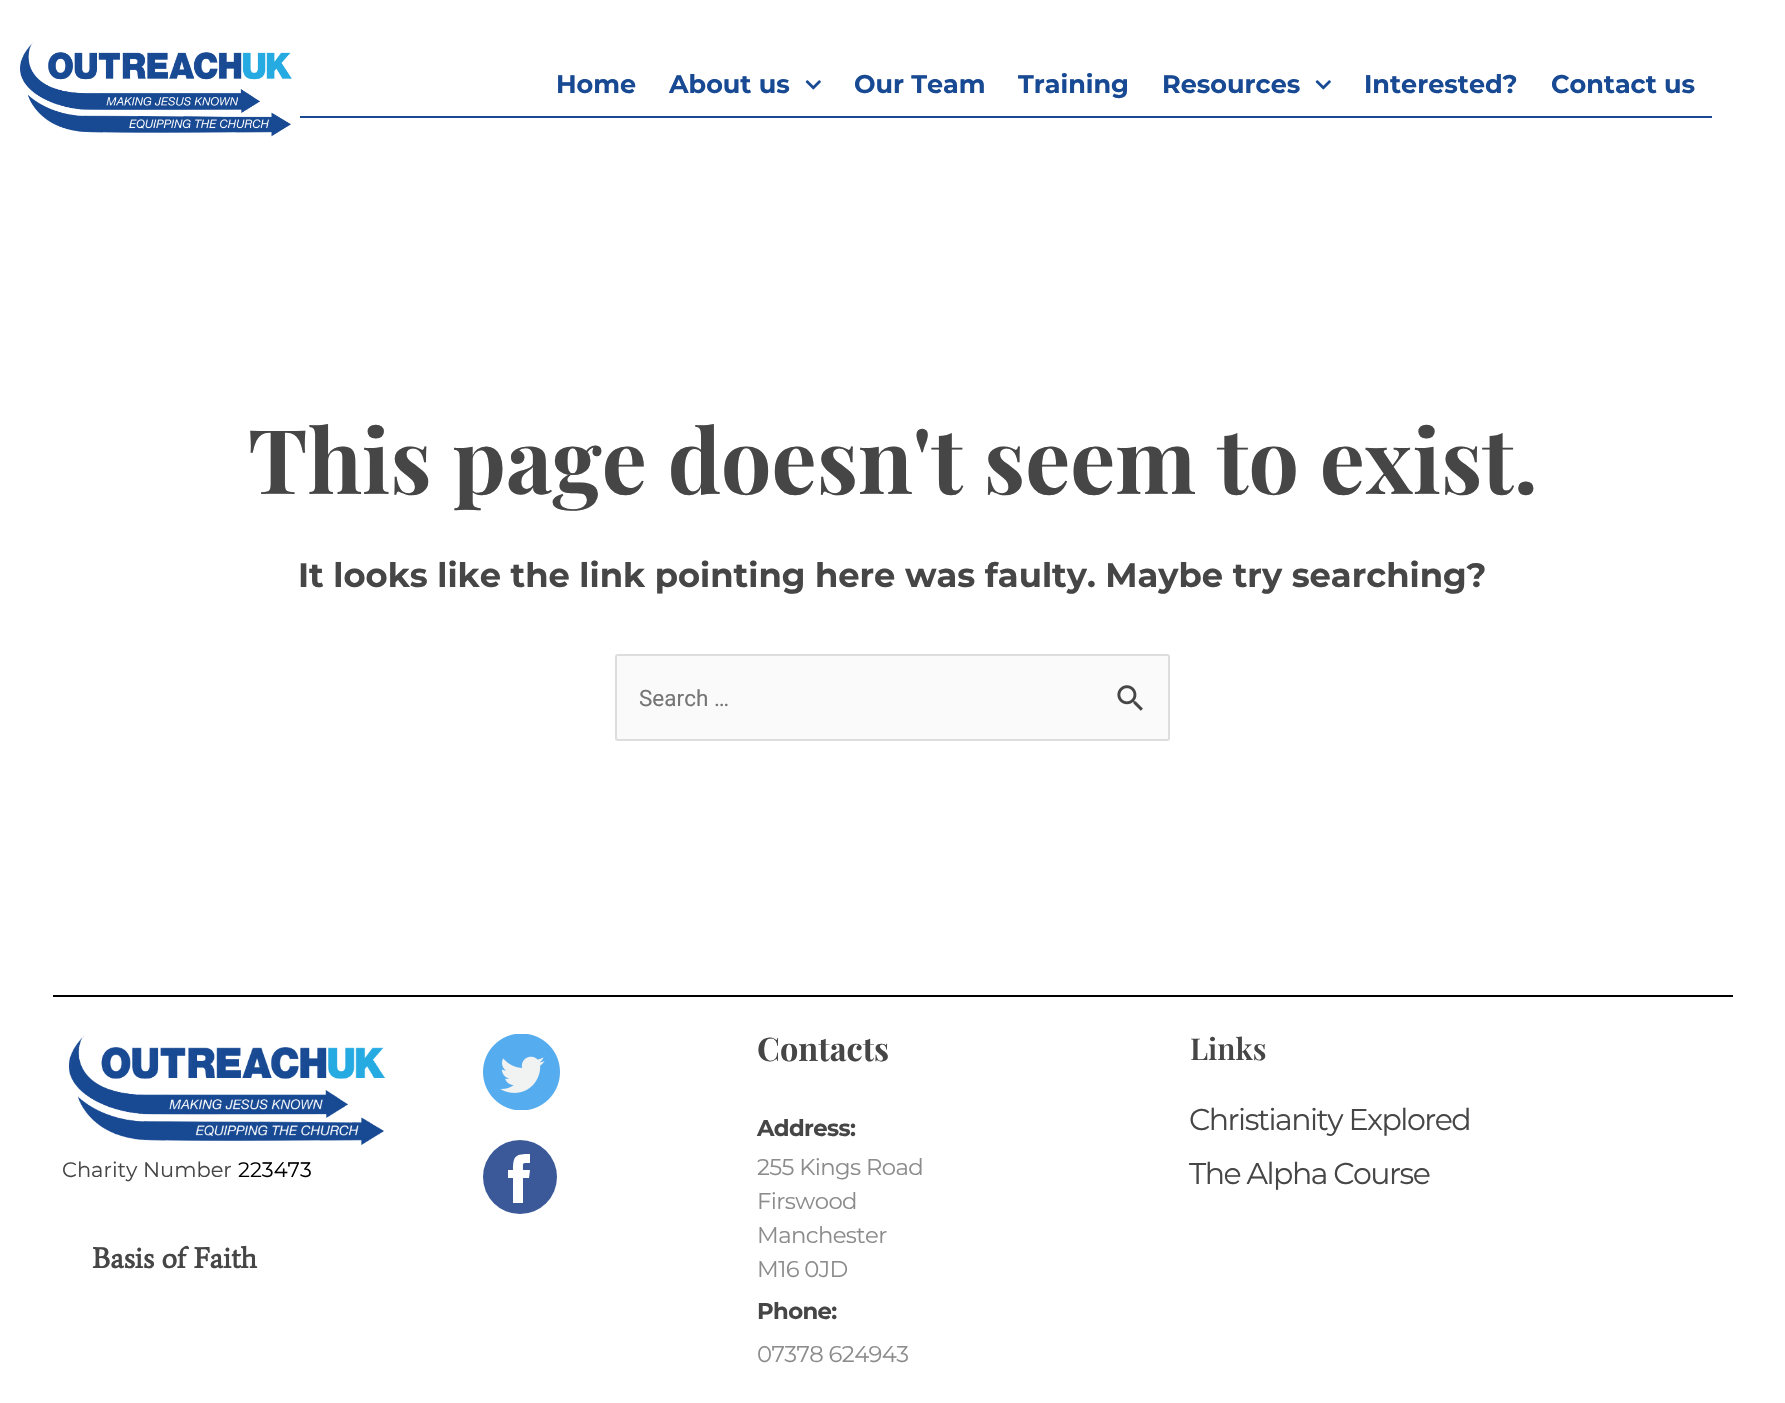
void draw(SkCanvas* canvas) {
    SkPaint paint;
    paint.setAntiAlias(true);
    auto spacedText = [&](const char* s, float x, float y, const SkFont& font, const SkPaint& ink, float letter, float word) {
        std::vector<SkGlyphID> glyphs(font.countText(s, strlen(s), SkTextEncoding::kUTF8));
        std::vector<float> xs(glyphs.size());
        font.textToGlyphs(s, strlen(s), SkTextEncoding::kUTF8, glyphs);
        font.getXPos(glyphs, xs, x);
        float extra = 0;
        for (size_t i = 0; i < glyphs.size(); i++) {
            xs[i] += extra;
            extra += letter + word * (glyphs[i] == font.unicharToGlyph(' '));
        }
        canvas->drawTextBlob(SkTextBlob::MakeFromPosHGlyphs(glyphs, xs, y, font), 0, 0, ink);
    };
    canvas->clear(0xFFFFFFFF);
    canvas->drawImageRect(SkImages::DeferredFromEncodedData(SkData::MakeFromFileName("img1.png")), SkRect::MakeXYWH(20, 42, 272, 95), SkSamplingOptions());
    SkFont font1(fontMgr->matchFamilyStyle("Montserrat", SkFontStyle::Bold()), 25.5f);
    font1.setSubpixel(true);
    paint.setColor(0xFF184993);
    canvas->drawString("Home", 556, 93, font1, paint);
    canvas->drawString("About us", 669, 93, font1, paint);
    canvas->drawImageRect(SkImages::DeferredFromEncodedData(SkData::MakeFromFileName("img2.png")), SkRect::MakeXYWH(805, 80, 16, 10), SkSamplingOptions());
    canvas->drawString("Our Team", 854, 93, font1, paint);
    canvas->drawString("Training", 1018, 93, font1, paint);
    canvas->drawString("Resources", 1162, 93, font1, paint);
    canvas->drawImageRect(SkImages::DeferredFromEncodedData(SkData::MakeFromFileName("img2.png")), SkRect::MakeXYWH(1315, 80, 16, 10), SkSamplingOptions());
    canvas->drawString("Interested?", 1364, 93, font1, paint);
    canvas->drawString("Contact us", 1551, 93, font1, paint);
    canvas->drawRect(SkRect::MakeXYWH(300, 116, 1412, 2), paint);
    SkFont font2(fontMgr->matchFamilyStyle("Playfair Display", SkFontStyle::Bold()), 89.4f);
    font2.setSubpixel(true);
    paint.setColor(0xFF464646);
    canvas->drawString("This page doesn't seem to exist.", 248, 494, font2, paint);
    SkFont font3(fontMgr->matchFamilyStyle("Montserrat", SkFontStyle::Bold()), 33.75f);
    font3.setSubpixel(true);
    canvas->drawString("It looks like the link pointing here was faulty. Maybe try searching?", 298, 587, font3, paint);
    paint.setColor(0xFFFAFAFA);
    canvas->drawRoundRect(SkRect::MakeXYWH(616, 655, 553, 85), 2, 2, paint);
    paint.setStyle(SkPaint::kStroke_Style);
    paint.setStrokeWidth(2);
    paint.setColor(0xFFDDDDDD);
    canvas->drawRoundRect(SkRect::MakeXYWH(616, 655, 553, 85), 2, 2, paint);
    SkFont font4(fontMgr->matchFamilyStyle("Roboto", SkFontStyle::Normal()), 22.5f);
    font4.setSubpixel(true);
    paint.setStyle(SkPaint::kFill_Style);
    paint.setColor(0xFF757575);
    canvas->drawString("Search …", 639, 706, font4, paint);
    canvas->drawImageRect(SkImages::DeferredFromEncodedData(SkData::MakeFromFileName("img3.png")), SkRect::MakeXYWH(1117, 685, 26, 26), SkSamplingOptions());
    paint.setColor(0xFF000000);
    canvas->drawRect(SkRect::MakeXYWH(53, 995, 1680, 2), paint);
    canvas->drawImageRect(SkImages::DeferredFromEncodedData(SkData::MakeFromFileName("img4.png")), SkRect::MakeXYWH(69, 1035, 316, 111), SkSamplingOptions());
    SkFont font5(fontMgr->matchFamilyStyle("Montserrat", SkFontStyle::Normal()), 21);
    font5.setSubpixel(true);
    paint.setColor(0xFF464646);
    canvas->drawString("Charity Number", 62, 1177, font5, paint);
    paint.setColor(0xFF000000);
    canvas->drawString("223473", 238, 1177, font5, paint);
    SkFont font6(fontMgr->matchFamilyStyle("Average", SkFontStyle::Bold()), 29.25f);
    font6.setSubpixel(true);
    paint.setColor(0xFF464646);
    canvas->drawString("Basis of Faith", 92, 1268, font6, paint);
    canvas->drawImageRect(SkImages::DeferredFromEncodedData(SkData::MakeFromFileName("img5.png")), SkRect::MakeXYWH(483, 1034, 77, 76), SkSamplingOptions());
    paint.setColor(0xFF3B5998);
    canvas->drawCircle(520, 1177, 37, paint);
    paint.setColor(0xFFFFFFFF);
    canvas->drawPath(SkPathBuilder().moveTo(529, 1178).lineTo(523, 1178).lineTo(523, 1203).lineTo(513, 1203).lineTo(513, 1178).lineTo(508, 1178).lineTo(508, 1170).lineTo(513, 1170).cubicTo(513, 1155, 516, 1154, 530, 1154).lineTo(530, 1163).cubicTo(522, 1163, 523, 1162, 523, 1170).lineTo(530, 1170).close().detach(), paint);
    SkFont font7(fontMgr->matchFamilyStyle("Playfair Display", SkFontStyle::Bold()), 32.5f);
    font7.setSubpixel(true);
    paint.setColor(0xFF464646);
    canvas->drawString("Contacts", 757, 1061, font7, paint);
    SkFont font8(fontMgr->matchFamilyStyle("Montserrat", SkFontStyle::Bold()), 22.75f);
    font8.setSubpixel(true);
    spacedText("Address:", 757, 1136, font8, paint, -0.6f, 0);
    SkFont font9(fontMgr->matchFamilyStyle("Montserrat", SkFontStyle::Normal()), 22.75f);
    font9.setSubpixel(true);
    paint.setColor(0xFF8C8C8C);
    spacedText("255 Kings Road", 757, 1175, font9, paint, -0.6f, 0);
    spacedText("Firswood", 757, 1209, font9, paint, -0.6f, 0);
    spacedText("Manchester", 757, 1243, font9, paint, -0.6f, 0);
    spacedText("M16 0JD", 757, 1277, font9, paint, -0.6f, 0);
    paint.setColor(0xFF464646);
    spacedText("Phone:", 757, 1319, font8, paint, -0.6f, 0);
    paint.setColor(0xFF8C8C8C);
    spacedText("07378 624943", 757, 1362, font9, paint, -0.6f, 0);
    SkFont font10(fontMgr->matchFamilyStyle("Playfair Display", SkFontStyle(600, SkFontStyle::kNormal_Width, SkFontStyle::kUpright_Slant)), 30);
    font10.setSubpixel(true);
    paint.setColor(0xFF464646);
    canvas->drawString("Links", 1190, 1060, font10, paint);
    SkFont font11(fontMgr->matchFamilyStyle("Montserrat", SkFontStyle::Normal()), 30);
    font11.setSubpixel(true);
    spacedText("Christianity Explored", 1189, 1130, font11, paint, -1.5f, 0);
    spacedText("The Alpha Course", 1189, 1184, font11, paint, -1.5f, 0);
}
